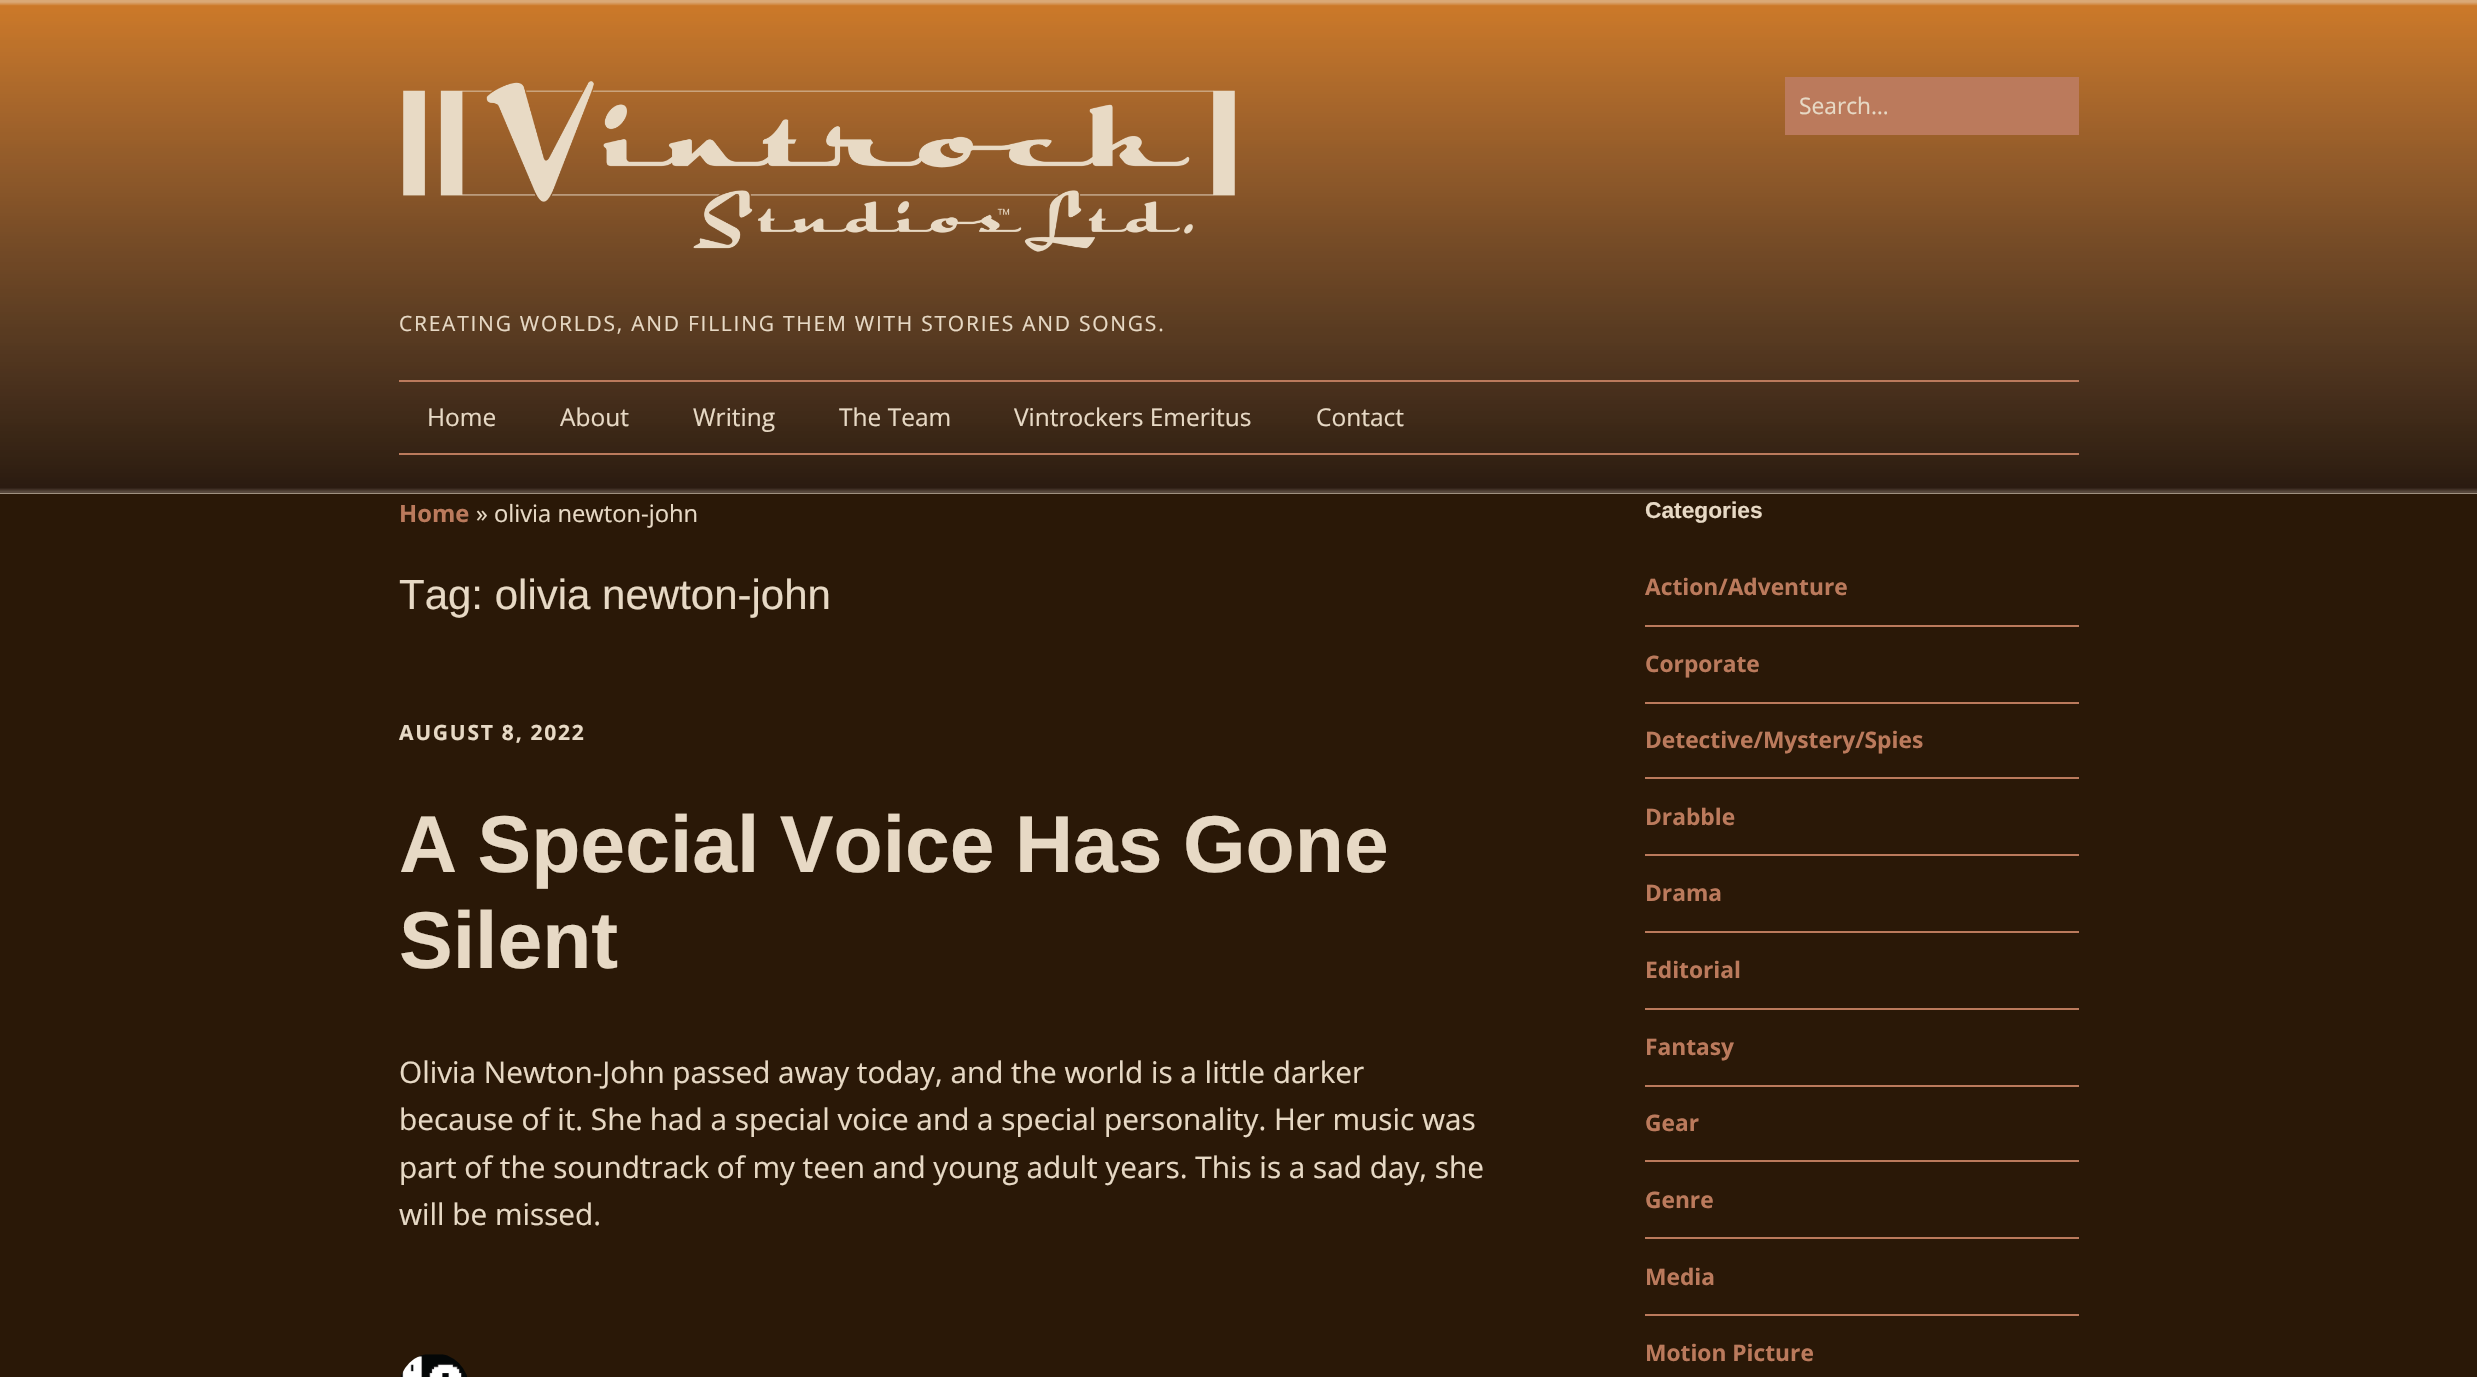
void draw(SkCanvas* canvas) {
    SkPaint paint;
    paint.setAntiAlias(true);
    auto spacedText = [&](const char* s, float x, float y, const SkFont& font, const SkPaint& ink, float letter, float word) {
        std::vector<SkGlyphID> glyphs(font.countText(s, strlen(s), SkTextEncoding::kUTF8));
        std::vector<float> xs(glyphs.size());
        font.textToGlyphs(s, strlen(s), SkTextEncoding::kUTF8, glyphs);
        font.getXPos(glyphs, xs, x);
        float extra = 0;
        for (size_t i = 0; i < glyphs.size(); i++) {
            xs[i] += extra;
            extra += letter + word * (glyphs[i] == font.unicharToGlyph(' '));
        }
        canvas->drawTextBlob(SkTextBlob::MakeFromPosHGlyphs(glyphs, xs, y, font), 0, 0, ink);
    };
    canvas->clear(0xFF2A1807);
    paint.setColor(0xFFE7D9C5);
    canvas->drawRect(SkRect::MakeXYWH(0, 0, 2477, 494), paint);
    canvas->drawImageRect(SkImages::DeferredFromEncodedData(SkData::MakeFromFileName("img1.png")), SkRect::MakeXYWH(0, 0, 2477, 494), SkSamplingOptions());
    paint.setColor(0xFFBB7A5C);
    canvas->drawRect(SkRect::MakeXYWH(1785, 77, 294, 58), paint);
    SkFont font1(fontMgr->matchFamilyStyle("Open Sans", SkFontStyle::Normal()), 22.75f);
    font1.setSubpixel(true);
    paint.setColor(0xFFE7D9C5);
    canvas->drawString("Search…", 1799, 114, font1, paint);
    canvas->drawImageRect(SkImages::DeferredFromEncodedData(SkData::MakeFromFileName("img2.png")), SkRect::MakeXYWH(403, 81, 832, 171), SkSamplingOptions());
    SkFont font2(fontMgr->matchFamilyStyle("Open Sans", SkFontStyle::Normal()), 21);
    font2.setSubpixel(true);
    spacedText("CREATING WORLDS, AND FILLING THEM WITH STORIES AND SONGS.", 399, 331, font2, paint, 1.75f, 0);
    paint.setColor(0xFFBB7A5C);
    canvas->drawRect(SkRect::MakeXYWH(399, 380, 1680, 2), paint);
    canvas->drawRect(SkRect::MakeXYWH(399, 453, 1680, 2), paint);
    SkFont font3(fontMgr->matchFamilyStyle("Open Sans", SkFontStyle::Normal()), 24.5f);
    font3.setSubpixel(true);
    paint.setColor(0xFFE7D9C5);
    canvas->drawString("Home", 427, 426, font3, paint);
    canvas->drawString("About", 560, 426, font3, paint);
    canvas->drawString("Writing", 693, 426, font3, paint);
    canvas->drawString("The Team", 839, 426, font3, paint);
    canvas->drawString("Vintrockers Emeritus", 1014, 426, font3, paint);
    canvas->drawString("Contact", 1316, 426, font3, paint);
    SkFont font4(fontMgr->matchFamilyStyle("Open Sans", SkFontStyle::Bold()), 23.75f);
    font4.setSubpixel(true);
    paint.setColor(0xFFBB7A5C);
    canvas->drawString("Home", 399, 522, font4, paint);
    SkFont font5(fontMgr->matchFamilyStyle("Open Sans", SkFontStyle::Normal()), 23.75f);
    font5.setSubpixel(true);
    paint.setColor(0xFFE7D9C5);
    canvas->drawString("» olivia newton-john", 476, 522, font5, paint);
    SkFont font6(fontMgr->matchFamilyStyle("Liberation Sans", SkFontStyle::Normal()), 42);
    font6.setSubpixel(true);
    canvas->drawString("Tag: olivia newton-john", 399, 609, font6, paint);
    SkFont font7(fontMgr->matchFamilyStyle("Open Sans", SkFontStyle::Bold()), 21);
    font7.setSubpixel(true);
    spacedText("AUGUST 8, 2022", 399, 740, font7, paint, 1.75f, 0);
    SkFont font8(fontMgr->matchFamilyStyle("Liberation Sans", SkFontStyle::Bold()), 80.5f);
    font8.setSubpixel(true);
    spacedText("A Special Voice Has Gone", 399, 872, font8, paint, 0, -2);
    canvas->drawString("Silent", 399, 968, font8, paint);
    SkFont font9(fontMgr->matchFamilyStyle("Open Sans", SkFontStyle::Normal()), 29.75f);
    font9.setSubpixel(true);
    canvas->drawString("Olivia Newton-John passed away today, and the world is a little darker", 399, 1083, font9, paint);
    canvas->drawString("because of it. She had a special voice and a special personality. Her music was", 399, 1130, font9, paint);
    canvas->drawString("part of the soundtrack of my teen and young adult years. This is a sad day, she", 399, 1178, font9, paint);
    canvas->drawString("will be missed.", 399, 1225, font9, paint);
    canvas->drawImageRect(SkImages::DeferredFromEncodedData(SkData::MakeFromFileName("img3.png")), SkRect::MakeXYWH(401, 1354, 66, 23), SkSamplingOptions());
    SkFont font10(fontMgr->matchFamilyStyle("Liberation Sans", SkFontStyle::Bold()), 22.75f);
    font10.setSubpixel(true);
    canvas->drawString("Categories", 1645, 518, font10, paint);
    paint.setColor(0xFFBB7A5C);
    canvas->drawRect(SkRect::MakeXYWH(1645, 625, 434, 2), paint);
    SkFont font11(fontMgr->matchFamilyStyle("Open Sans", SkFontStyle::Bold()), 22.75f);
    font11.setSubpixel(true);
    canvas->drawString("Action/Adventure", 1645, 595, font11, paint);
    canvas->drawRect(SkRect::MakeXYWH(1645, 702, 434, 2), paint);
    canvas->drawString("Corporate", 1645, 672, font11, paint);
    canvas->drawRect(SkRect::MakeXYWH(1645, 777, 434, 2), paint);
    canvas->drawString("Detective/Mystery/Spies", 1645, 748, font11, paint);
    canvas->drawRect(SkRect::MakeXYWH(1645, 854, 434, 2), paint);
    canvas->drawString("Drabble", 1645, 825, font11, paint);
    canvas->drawRect(SkRect::MakeXYWH(1645, 931, 434, 2), paint);
    canvas->drawString("Drama", 1645, 901, font11, paint);
    canvas->drawRect(SkRect::MakeXYWH(1645, 1008, 434, 2), paint);
    canvas->drawString("Editorial", 1645, 978, font11, paint);
    canvas->drawRect(SkRect::MakeXYWH(1645, 1085, 434, 2), paint);
    canvas->drawString("Fantasy", 1645, 1055, font11, paint);
    canvas->drawRect(SkRect::MakeXYWH(1645, 1160, 434, 2), paint);
    canvas->drawString("Gear", 1645, 1131, font11, paint);
    canvas->drawRect(SkRect::MakeXYWH(1645, 1237, 434, 2), paint);
    canvas->drawString("Genre", 1645, 1208, font11, paint);
    canvas->drawRect(SkRect::MakeXYWH(1645, 1314, 434, 2), paint);
    canvas->drawString("Media", 1645, 1285, font11, paint);
    canvas->drawString("Motion Picture", 1645, 1361, font11, paint);
}
